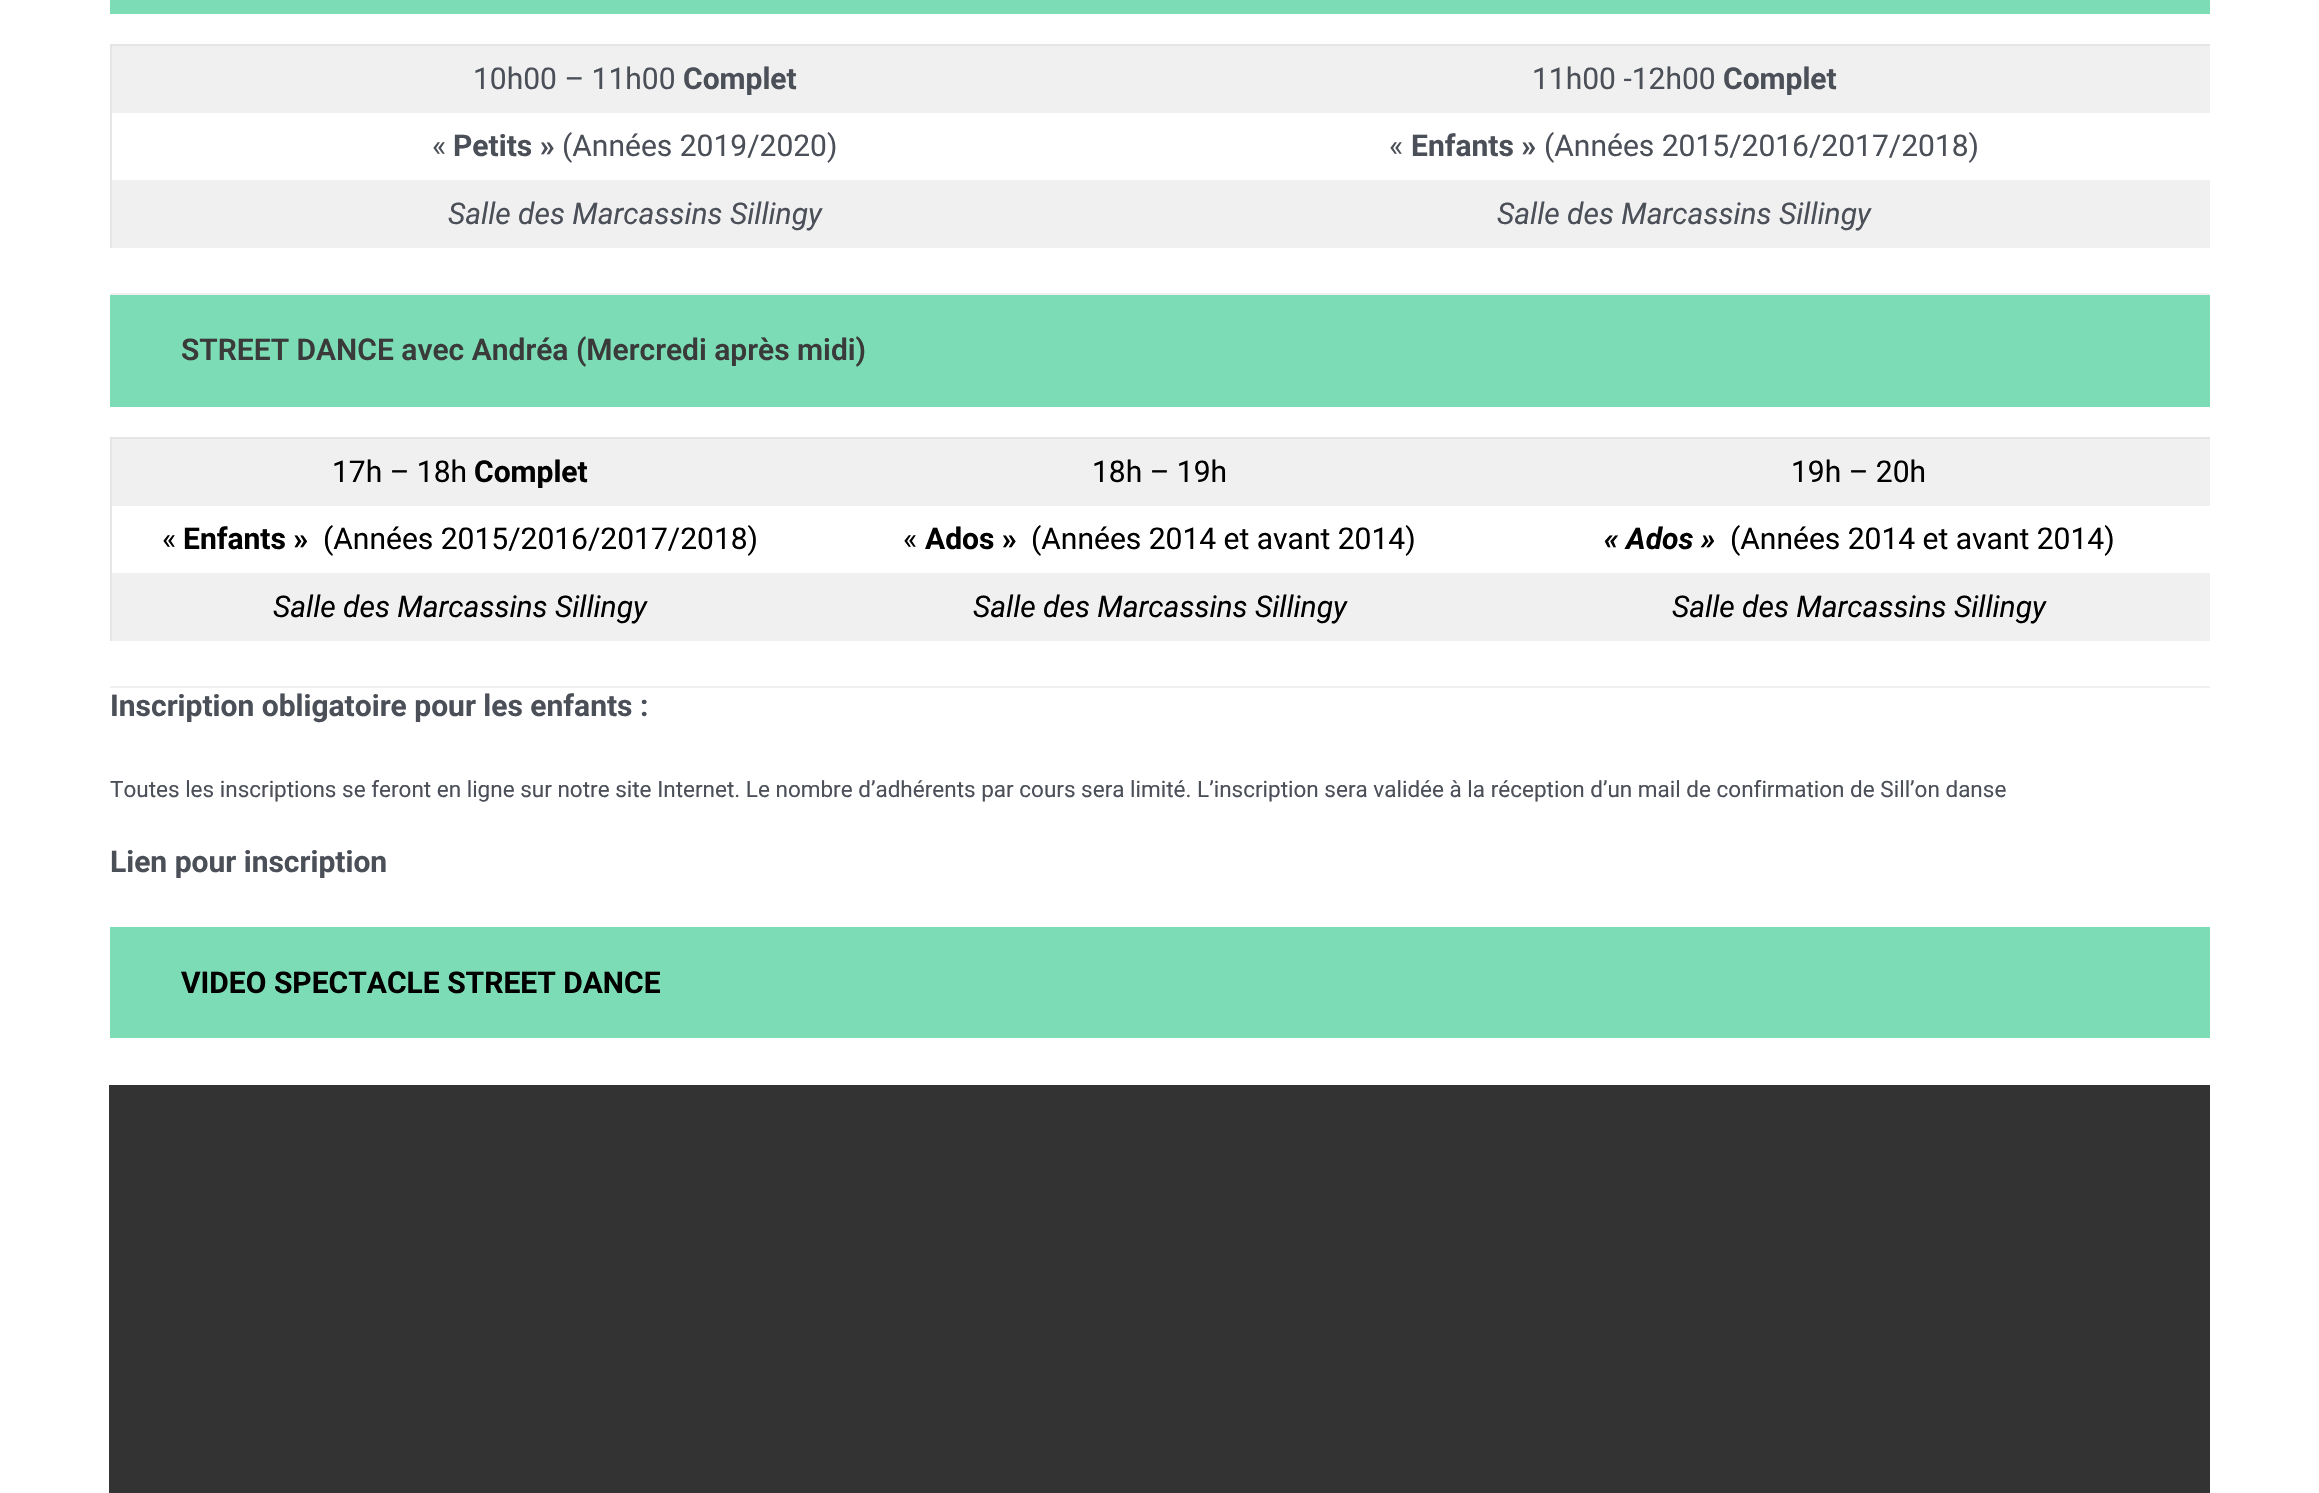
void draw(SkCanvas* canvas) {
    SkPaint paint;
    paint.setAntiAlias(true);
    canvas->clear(0xFFFFFFFF);
    paint.setColor(0xFF7BDCB5);
    canvas->drawRect(SkRect::MakeXYWH(110, 0, 2100, 14), paint);
    paint.setColor(0xFFF0F0F0);
    canvas->drawRect(SkRect::MakeXYWH(110, 293, 2100, 2), paint);
    paint.setColor(0xFFE5E5E5);
    canvas->drawRect(SkRect::MakeXYWH(110, 44, 2100, 2), paint);
    canvas->drawRect(SkRect::MakeXYWH(110, 44, 2, 204), paint);
    paint.setColor(0xFFF0F0F0);
    canvas->drawRect(SkRect::MakeXYWH(112, 46, 2098, 67), paint);
    SkFont font1(fontMgr->matchFamilyStyle("Roboto", SkFontStyle::Normal()), 30);
    font1.setSubpixel(true);
    paint.setColor(0xFF4B4F58);
    canvas->drawString("10h00 – 11h00", 473, 89, font1, paint);
    SkFont font2(fontMgr->matchFamilyStyle("Roboto", SkFontStyle::Bold()), 30);
    font2.setSubpixel(true);
    canvas->drawString("Complet", 683, 89, font2, paint);
    canvas->drawString("11h00 -12h00", 1532, 89, font1, paint);
    canvas->drawString("Complet", 1723, 89, font2, paint);
    canvas->drawString("«", 432, 156, font1, paint);
    canvas->drawString("Petits »", 453, 156, font2, paint);
    canvas->drawString("(Années 2019/2020)", 562, 156, font1, paint);
    canvas->drawString("«", 1389, 156, font1, paint);
    canvas->drawString("Enfants »", 1411, 156, font2, paint);
    canvas->drawString("(Années 2015/2016/2017/2018)", 1544, 156, font1, paint);
    paint.setColor(0xFFF0F0F0);
    canvas->drawRect(SkRect::MakeXYWH(112, 180, 2098, 68), paint);
    SkFont font3(fontMgr->matchFamilyStyle("Roboto", SkFontStyle::Italic()), 30);
    font3.setSubpixel(true);
    paint.setColor(0xFF4B4F58);
    canvas->drawString("Salle des Marcassins Sillingy", 448, 224, font3, paint);
    canvas->drawString("Salle des Marcassins Sillingy", 1497, 224, font3, paint);
    paint.setColor(0xFF7BDCB5);
    canvas->drawRect(SkRect::MakeXYWH(110, 295, 2100, 112), paint);
    SkFont font4(fontMgr->matchFamilyStyle("Roboto", SkFontStyle(600, SkFontStyle::kNormal_Width, SkFontStyle::kUpright_Slant)), 30);
    font4.setSubpixel(true);
    paint.setColor(0xFF3A3A3A);
    canvas->drawString("STREET DANCE avec Andréa (Mercredi après midi)", 181, 360, font4, paint);
    paint.setColor(0xFFF0F0F0);
    canvas->drawRect(SkRect::MakeXYWH(110, 686, 2100, 2), paint);
    paint.setColor(0xFFE5E5E5);
    canvas->drawRect(SkRect::MakeXYWH(110, 437, 2100, 2), paint);
    canvas->drawRect(SkRect::MakeXYWH(110, 437, 2, 204), paint);
    paint.setColor(0xFFF0F0F0);
    canvas->drawRect(SkRect::MakeXYWH(112, 439, 2098, 67), paint);
    paint.setColor(0xFF000000);
    canvas->drawString("17h – 18h", 332, 482, font1, paint);
    canvas->drawString("Complet", 474, 482, font2, paint);
    canvas->drawString("18h – 19h", 1092, 482, font1, paint);
    canvas->drawString("19h – 20h", 1791, 482, font1, paint);
    canvas->drawString("«", 162, 549, font1, paint);
    canvas->drawString("Enfants »", 183, 549, font2, paint);
    canvas->drawString("(Années 2015/2016/2017/2018)", 323, 549, font1, paint);
    canvas->drawString("«", 903, 549, font1, paint);
    canvas->drawString("Ados »", 925, 549, font2, paint);
    canvas->drawString("(Années 2014 et avant 2014)", 1031, 549, font1, paint);
    SkFont font5(fontMgr->matchFamilyStyle("Roboto", SkFontStyle::BoldItalic()), 30);
    font5.setSubpixel(true);
    canvas->drawString("« Ados »", 1604, 549, font5, paint);
    canvas->drawString("(Années 2014 et avant 2014)", 1730, 549, font1, paint);
    paint.setColor(0xFFF0F0F0);
    canvas->drawRect(SkRect::MakeXYWH(112, 573, 2098, 68), paint);
    paint.setColor(0xFF000000);
    canvas->drawString("Salle des Marcassins Sillingy", 273, 617, font3, paint);
    canvas->drawString("Salle des Marcassins Sillingy", 973, 617, font3, paint);
    canvas->drawString("Salle des Marcassins Sillingy", 1672, 617, font3, paint);
    paint.setColor(0xFF4B4F58);
    canvas->drawString("Inscription obligatoire pour les enfants :", 110, 716, font2, paint);
    SkFont font6(fontMgr->matchFamilyStyle("Roboto", SkFontStyle::Normal()), 22.5f);
    font6.setSubpixel(true);
    canvas->drawString("Toutes les inscriptions se feront en ligne sur notre site Internet. Le nombre d’adhérents par cours sera limité. L’inscription sera validée à la réception d’un mail de confirmation de Sill’on danse", 110, 797, font6, paint);
    canvas->drawString("Lien pour inscription", 110, 872, font2, paint);
    paint.setColor(0xFF7BDCB5);
    canvas->drawRect(SkRect::MakeXYWH(110, 927, 2100, 111), paint);
    paint.setColor(0xFF000000);
    canvas->drawString("VIDEO SPECTACLE STREET DANCE", 181, 993, font2, paint);
    paint.setColor(0xFF333333);
    canvas->drawRect(SkRect::MakeXYWH(109, 1085, 2101, 408), paint);
}
